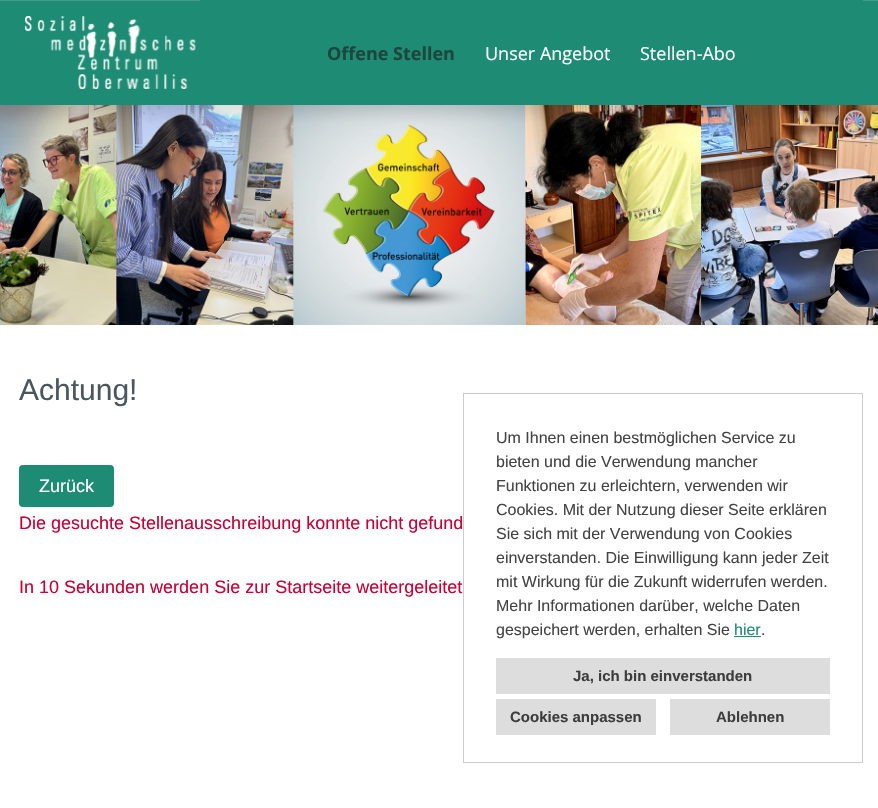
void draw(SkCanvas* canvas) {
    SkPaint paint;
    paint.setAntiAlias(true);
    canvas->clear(0xFFFFFFFF);
    canvas->drawImageRect(SkImages::DeferredFromEncodedData(SkData::MakeFromFileName("img2.png")), SkRect::MakeXYWH(0, 105, 878, 220), SkSamplingOptions());
    paint.setColor(0x26000000);
    paint.setMaskFilter(SkMaskFilter::MakeBlur(kNormal_SkBlurStyle, 8));
    canvas->drawRect(SkRect::MakeXYWH(0, 8, 878, 105), paint);
    paint.setMaskFilter(nullptr);
    paint.setColor(0xFF1E8B74);
    canvas->drawRect(SkRect::MakeXYWH(0, 1, 878, 104), paint);
    paint.setColor(0xFF409C89);
    canvas->drawRect(SkRect::MakeXYWH(0, 0, 878, 1), paint);
    canvas->drawImageRect(SkImages::DeferredFromEncodedData(SkData::MakeFromFileName("img1.png")), SkRect::MakeXYWH(25, 16, 171, 73), SkSamplingOptions());
    paint.setColor(0xFF1E8B74);
    canvas->drawRect(SkRect::MakeXYWH(200, 0, 663, 1), paint);
    SkFont font1(fontMgr->matchFamilyStyle("Open Sans", SkFontStyle::Bold()), 18);
    font1.setSubpixel(true);
    paint.setColor(0xFF1D473E);
    canvas->drawString("Offene Stellen", 327, 60, font1, paint);
    SkFont font2(fontMgr->matchFamilyStyle("Open Sans", SkFontStyle::Normal()), 18);
    font2.setSubpixel(true);
    paint.setColor(0xFFFFFFFF);
    canvas->drawString("Unser Angebot", 485, 60, font2, paint);
    canvas->drawString("Stellen-Abo", 640, 60, font2, paint);
    SkFont font3(fontMgr->matchFamilyStyle("Liberation Sans", SkFontStyle::Normal()), 30);
    font3.setSubpixel(true);
    paint.setColor(0xFF4B575F);
    canvas->drawString("Achtung!", 19, 400, font3, paint);
    paint.setColor(0xFF1E8B74);
    canvas->drawRoundRect(SkRect::MakeXYWH(19, 465, 95, 42), 4, 4, paint);
    SkFont font4(fontMgr->matchFamilyStyle("Liberation Sans", SkFontStyle::Normal()), 18);
    font4.setSubpixel(true);
    paint.setColor(0xFFFFFFFF);
    canvas->drawString("Zurück", 39, 492, font4, paint);
    paint.setColor(0xFFCC0033);
    canvas->drawString("Die gesuchte Stellenausschreibung konnte nicht gefund", 19, 529, font4, paint);
    canvas->drawString("In 10 Sekunden werden Sie zur Startseite weitergeleitet", 19, 593, font4, paint);
    paint.setStyle(SkPaint::kStroke_Style);
    paint.setStrokeWidth(1);
    paint.setColor(0xFFCCCCCC);
    canvas->drawRect(SkRect::MakeXYWH(463.5f, 393.5f, 399, 369), paint);
    SkFont font5(fontMgr->matchFamilyStyle("Liberation Sans", SkFontStyle::Normal()), 16);
    font5.setSubpixel(true);
    paint.setStyle(SkPaint::kFill_Style);
    paint.setColor(0xFF434343);
    canvas->drawString("Um Ihnen einen bestmöglichen Service zu", 496, 443, font5, paint);
    canvas->drawString("bieten und die Verwendung mancher", 496, 467, font5, paint);
    canvas->drawString("Funktionen zu erleichtern, verwenden wir", 496, 491, font5, paint);
    canvas->drawString("Cookies. Mit der Nutzung dieser Seite erklären", 496, 515, font5, paint);
    canvas->drawString("Sie sich mit der Verwendung von Cookies", 496, 539, font5, paint);
    canvas->drawString("einverstanden. Die Einwilligung kann jeder Zeit", 496, 563, font5, paint);
    canvas->drawString("mit Wirkung für die Zukunft widerrufen werden.", 496, 587, font5, paint);
    canvas->drawString("Mehr Informationen darüber, welche Daten", 496, 611, font5, paint);
    canvas->drawString("gespeichert werden, erhalten Sie", 496, 635, font5, paint);
    paint.setColor(0xFF1E8B74);
    canvas->drawString("hier", 734, 635, font5, paint);
    canvas->drawRect(SkRect::MakeXYWH(734, 636, 27, 1), paint);
    paint.setColor(0xFF434343);
    canvas->drawString(".", 761, 635, font5, paint);
    paint.setColor(0xFFDDDDDD);
    canvas->drawRect(SkRect::MakeXYWH(496, 658, 334, 36), paint);
    SkFont font6(fontMgr->matchFamilyStyle("Liberation Sans", SkFontStyle::Bold()), 15);
    font6.setSubpixel(true);
    paint.setColor(0xFF3D3D3D);
    canvas->drawString("Ja, ich bin einverstanden", 573, 681, font6, paint);
    paint.setColor(0xFFDDDDDD);
    canvas->drawRect(SkRect::MakeXYWH(496, 699, 160, 36), paint);
    paint.setColor(0xFF3D3D3D);
    canvas->drawString("Cookies anpassen", 510, 722, font6, paint);
    paint.setColor(0xFFDDDDDD);
    canvas->drawRect(SkRect::MakeXYWH(670, 699, 160, 36), paint);
    paint.setColor(0xFF3D3D3D);
    canvas->drawString("Ablehnen", 716, 722, font6, paint);
}
